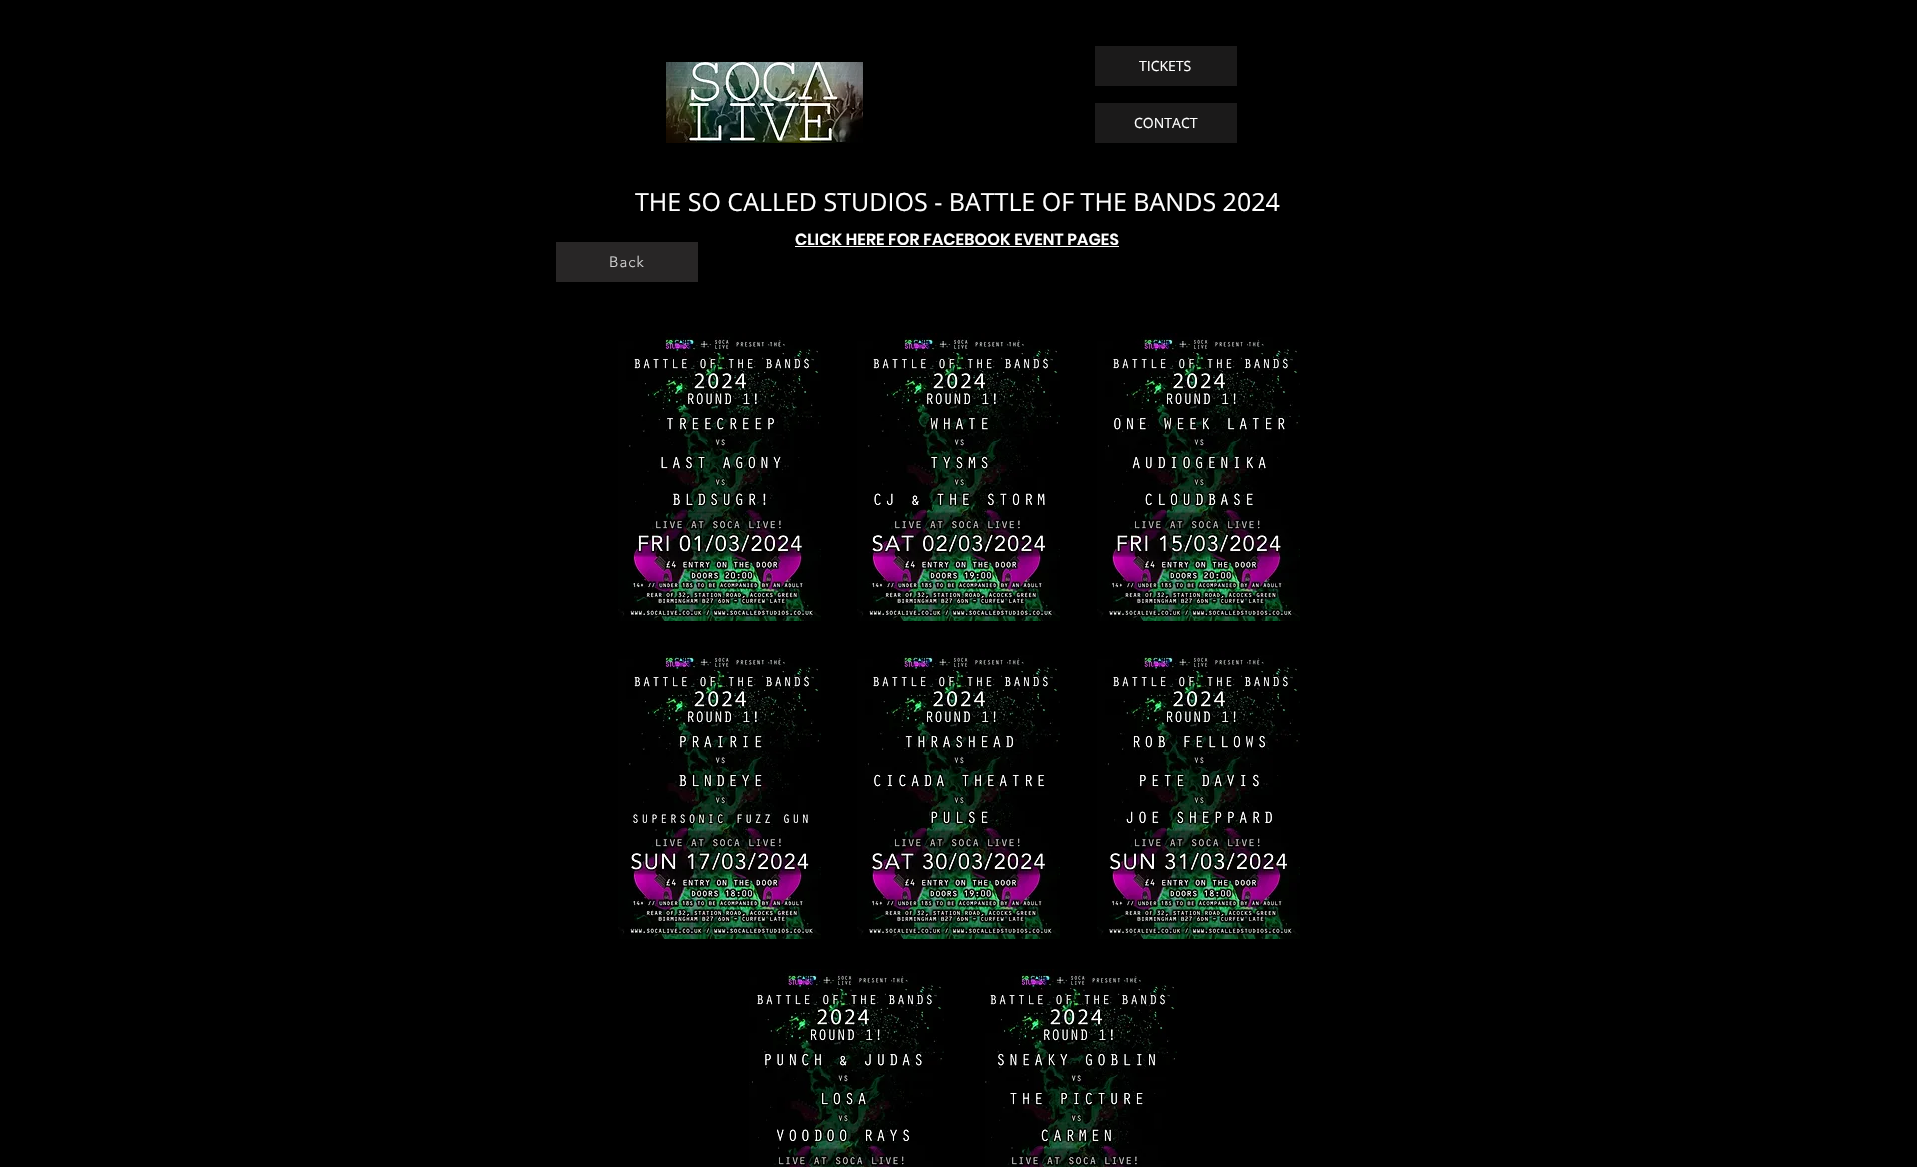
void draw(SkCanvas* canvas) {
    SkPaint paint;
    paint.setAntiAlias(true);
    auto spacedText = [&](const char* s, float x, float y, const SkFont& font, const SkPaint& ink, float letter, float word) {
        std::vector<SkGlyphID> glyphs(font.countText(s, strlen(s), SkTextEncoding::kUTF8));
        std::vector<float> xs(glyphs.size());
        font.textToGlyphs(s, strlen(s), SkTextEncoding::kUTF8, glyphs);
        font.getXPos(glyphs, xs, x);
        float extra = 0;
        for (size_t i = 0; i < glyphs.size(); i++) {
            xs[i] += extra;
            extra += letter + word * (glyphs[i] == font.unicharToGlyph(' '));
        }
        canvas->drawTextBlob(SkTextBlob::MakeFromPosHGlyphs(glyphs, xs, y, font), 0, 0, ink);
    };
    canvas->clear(0xFF000000);
    canvas->drawImageRect(SkImages::DeferredFromEncodedData(SkData::MakeFromFileName("img1.png")), SkRect::MakeXYWH(666, 62, 197, 81), SkSamplingOptions());
    paint.setColor(0xFF1B1A1A);
    canvas->drawRect(SkRect::MakeXYWH(1095, 46, 142, 40), paint);
    SkFont font1(fontMgr->matchFamilyStyle("Open Sans", SkFontStyle::Normal()), 14);
    font1.setSubpixel(true);
    paint.setColor(0xFFFFFFFF);
    canvas->drawString("TICKETS", 1139, 71, font1, paint);
    paint.setColor(0xFF1B1A1A);
    canvas->drawRect(SkRect::MakeXYWH(1095, 103, 142, 40), paint);
    paint.setColor(0xFFFFFFFF);
    canvas->drawString("CONTACT", 1134, 128, font1, paint);
    SkFont font2(fontMgr->matchFamilyStyle("Open Sans", SkFontStyle::Normal()), 25);
    font2.setSubpixel(true);
    canvas->drawString("THE SO CALLED STUDIOS - BATTLE OF THE BANDS 2024", 635, 211, font2, paint);
    SkFont font3(fontMgr->matchFamilyStyle("Poppins", SkFontStyle(600, SkFontStyle::kNormal_Width, SkFontStyle::kUpright_Slant)), 16);
    font3.setSubpixel(true);
    spacedText("CLICK HERE FOR FACEBOOK EVENT PAGES", 795, 245, font3, paint, 0.15f, 0);
    canvas->drawRect(SkRect::MakeXYWH(795, 246, 324, 1), paint);
    paint.setColor(0xFF282626);
    canvas->drawRect(SkRect::MakeXYWH(556, 242, 142, 40), paint);
    SkFont font4(fontMgr->matchFamilyStyle("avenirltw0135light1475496", SkFontStyle(300, SkFontStyle::kNormal_Width, SkFontStyle::kUpright_Slant)), 15);
    font4.setSubpixel(true);
    paint.setColor(0xFFD5D5D5);
    spacedText("Back", 609, 267, font4, paint, 1, 0);
    canvas->drawImageRect(SkImages::DeferredFromEncodedData(SkData::MakeFromFileName("img2.png")), SkRect::MakeXYWH(618, 333, 203, 288), SkSamplingOptions());
    canvas->drawImageRect(SkImages::DeferredFromEncodedData(SkData::MakeFromFileName("img3.png")), SkRect::MakeXYWH(857, 333, 203, 288), SkSamplingOptions());
    canvas->drawImageRect(SkImages::DeferredFromEncodedData(SkData::MakeFromFileName("img4.png")), SkRect::MakeXYWH(1097, 333, 203, 288), SkSamplingOptions());
    canvas->drawImageRect(SkImages::DeferredFromEncodedData(SkData::MakeFromFileName("img5.png")), SkRect::MakeXYWH(618, 651, 203, 288), SkSamplingOptions());
    canvas->drawImageRect(SkImages::DeferredFromEncodedData(SkData::MakeFromFileName("img6.png")), SkRect::MakeXYWH(857, 651, 203, 288), SkSamplingOptions());
    canvas->drawImageRect(SkImages::DeferredFromEncodedData(SkData::MakeFromFileName("img7.png")), SkRect::MakeXYWH(1097, 651, 203, 288), SkSamplingOptions());
    canvas->drawImageRect(SkImages::DeferredFromEncodedData(SkData::MakeFromFileName("img8.png")), SkRect::MakeXYWH(749, 969, 195, 198), SkSamplingOptions());
    canvas->drawImageRect(SkImages::DeferredFromEncodedData(SkData::MakeFromFileName("img9.png")), SkRect::MakeXYWH(985, 969, 192, 198), SkSamplingOptions());
}
